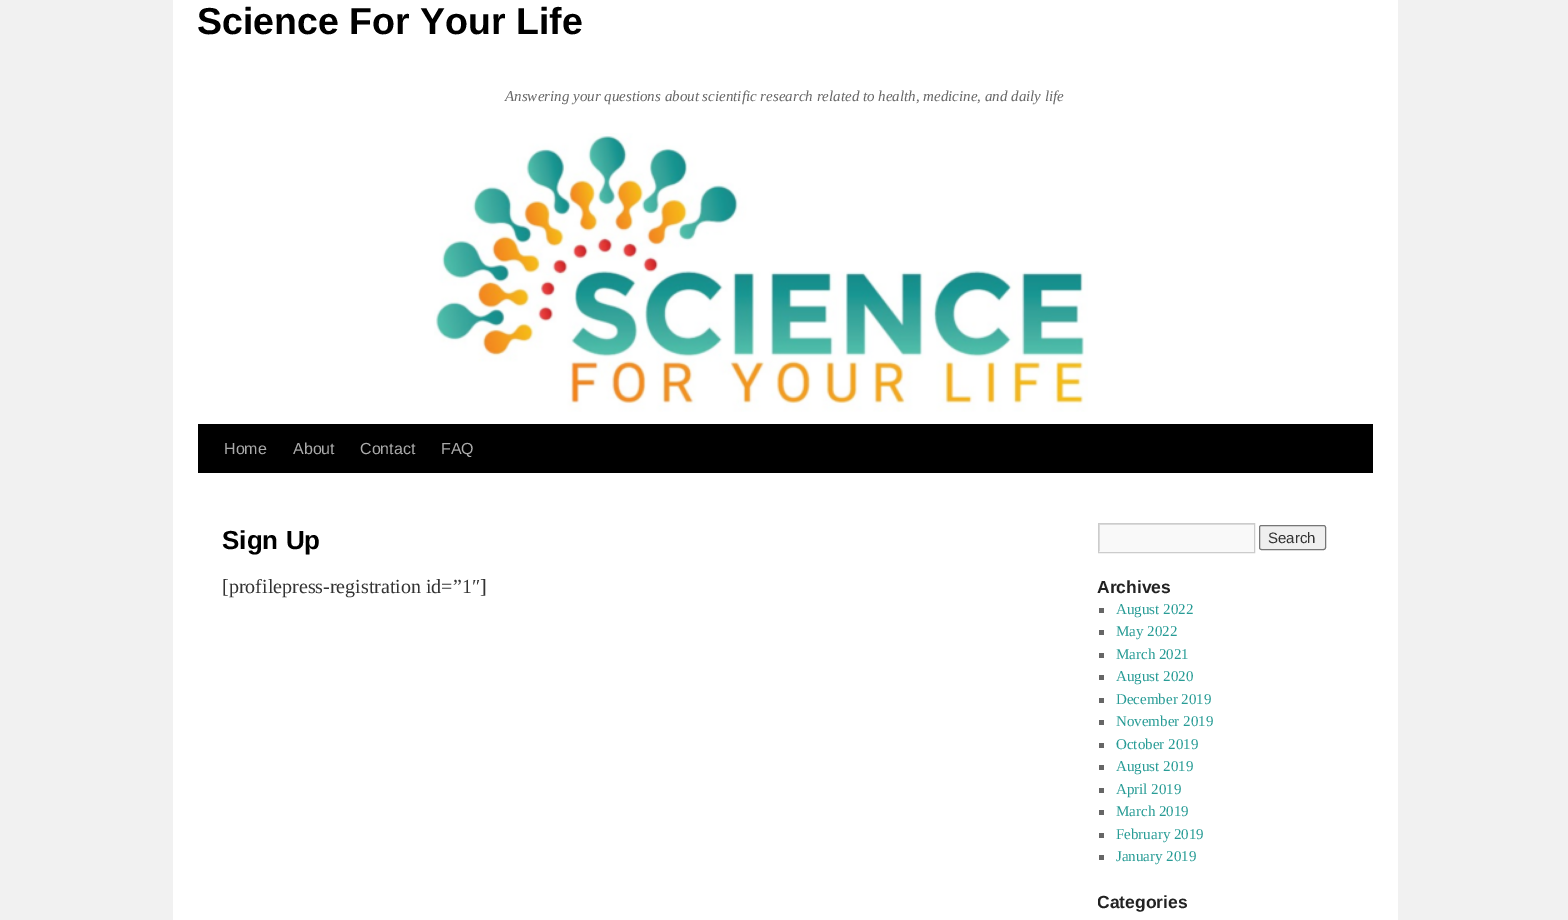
%!PS-Adobe-3.0
%%BoundingBox: 0 0 1568 920
%%LanguageLevel: 3
%%Pages: 1
%%EndComments
%%BeginProlog
/setink { dup -16 bitshift 255 div exch dup -8 bitshift 255 and 255 div exch 255 and 255 div setrgbcolor } def
/usefont { [ exch dup neg 0 0 3 -1 roll 0 0 ] selectfont } def
/rrect { 5 dict begin { /r /h /w /y /x } { exch def } forall
  x r add y moveto x w add y 2 copy h add r arct x w add y h add x 1 index r arct
  x y h add x y r arct x y 2 copy exch w add exch r arct closepath end } def
/drawimage { 5 dict begin { /h /w /y /x /name } { exch def } forall
  gsave x y translate w h scale
  w h 8 [w 0 0 h 0 0] name (r) file false 3 colorimage grestore end } def
%%EndProlog
%%BeginSetup
<< /PageSize [1568 920] >> setpagedevice
%%EndSetup
%%Page: 1 1
0 920 translate 1 -1 scale
4 setmiterlimit
16#F1F1F1 setink
0 0 1568 920 rectfill
16#FFFFFF setink
173 0 1225 920 rectfill
/LiberationSans-Bold 37.5 usefont
16#000000 setink
197 34 moveto (Science For Your Life) show
/LiberationSerif-Italic 15 usefont
16#666666 setink
505 101 moveto (Answering your questions about scientific research related to health, medicine, and daily life) show
16#000000 setink
198 424 1175 49 rectfill
(img1.raw) 434 133 654 279 drawimage
/LiberationSans-Regular 16 usefont
16#AAAAAA setink
[
    [(Home) 224 454]
    [(About) 293 454]
    [(Contact) 360 454]
    [(FAQ) 441 454]
] { aload pop moveto show } forall
/LiberationSans-Bold 26 usefont
16#000000 setink
222 549 moveto (Sign Up) show
/LiberationSerif-Regular 20 usefont
16#333333 setink
222 593 moveto ([profilepress-registration id=”1″]) show
16#F9F9F9 setink
1099 525 155 27 rectfill
gsave
1099 524 155 27 rectclip
16#E0E0E0 setink
975 400 moveto 1378 400 lineto 1378 675 lineto 975 675 lineto closepath 1100 525 moveto 1255 525 lineto 1255 552 lineto 1100 552 lineto closepath eofill
grestore
16#CCCCCC setink
1098.5 523.5 156 29 rectstroke
16#EFEFEF setink
1259.5 525.5 66 24 2 rrect gsave fill grestore
16#767676 setink
stroke
/LiberationSans-Regular 15 usefont
16#333333 setink
1268 543 moveto (Search) show
/LiberationSans-Bold 17.5 usefont
16#222222 setink
1097 593 moveto (Archives) show
16#666666 setink
1099 608 5 5 rectfill
/LiberationSerif-Regular 15 usefont
16#289C96 setink
1116 614 moveto (August 2022) show
16#666666 setink
1099 630 5 5 rectfill
16#289C96 setink
1116 636 moveto (May 2022) show
16#666666 setink
1099 653 5 5 rectfill
16#289C96 setink
1116 659 moveto (March 2021) show
16#666666 setink
1099 675 5 5 rectfill
16#289C96 setink
1116 681 moveto (August 2020) show
16#666666 setink
1099 698 5 5 rectfill
16#289C96 setink
1116 704 moveto (December 2019) show
16#666666 setink
1099 720 5 5 rectfill
16#289C96 setink
1116 726 moveto (November 2019) show
16#666666 setink
1099 743 5 5 rectfill
16#289C96 setink
1116 749 moveto (October 2019) show
16#666666 setink
1099 765 5 5 rectfill
16#289C96 setink
1116 771 moveto (August 2019) show
16#666666 setink
1099 788 5 5 rectfill
16#289C96 setink
1116 794 moveto (April 2019) show
16#666666 setink
1099 810 5 5 rectfill
16#289C96 setink
1116 816 moveto (March 2019) show
16#666666 setink
1099 833 5 5 rectfill
16#289C96 setink
1116 839 moveto (February 2019) show
16#666666 setink
1099 855 5 5 rectfill
16#289C96 setink
1116 861 moveto (January 2019) show
gsave
1098 523 275 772 rectclip
/LiberationSans-Bold 17.5 usefont
16#222222 setink
1097 908 moveto (Categories) show
grestore
showpage
%%EOF
